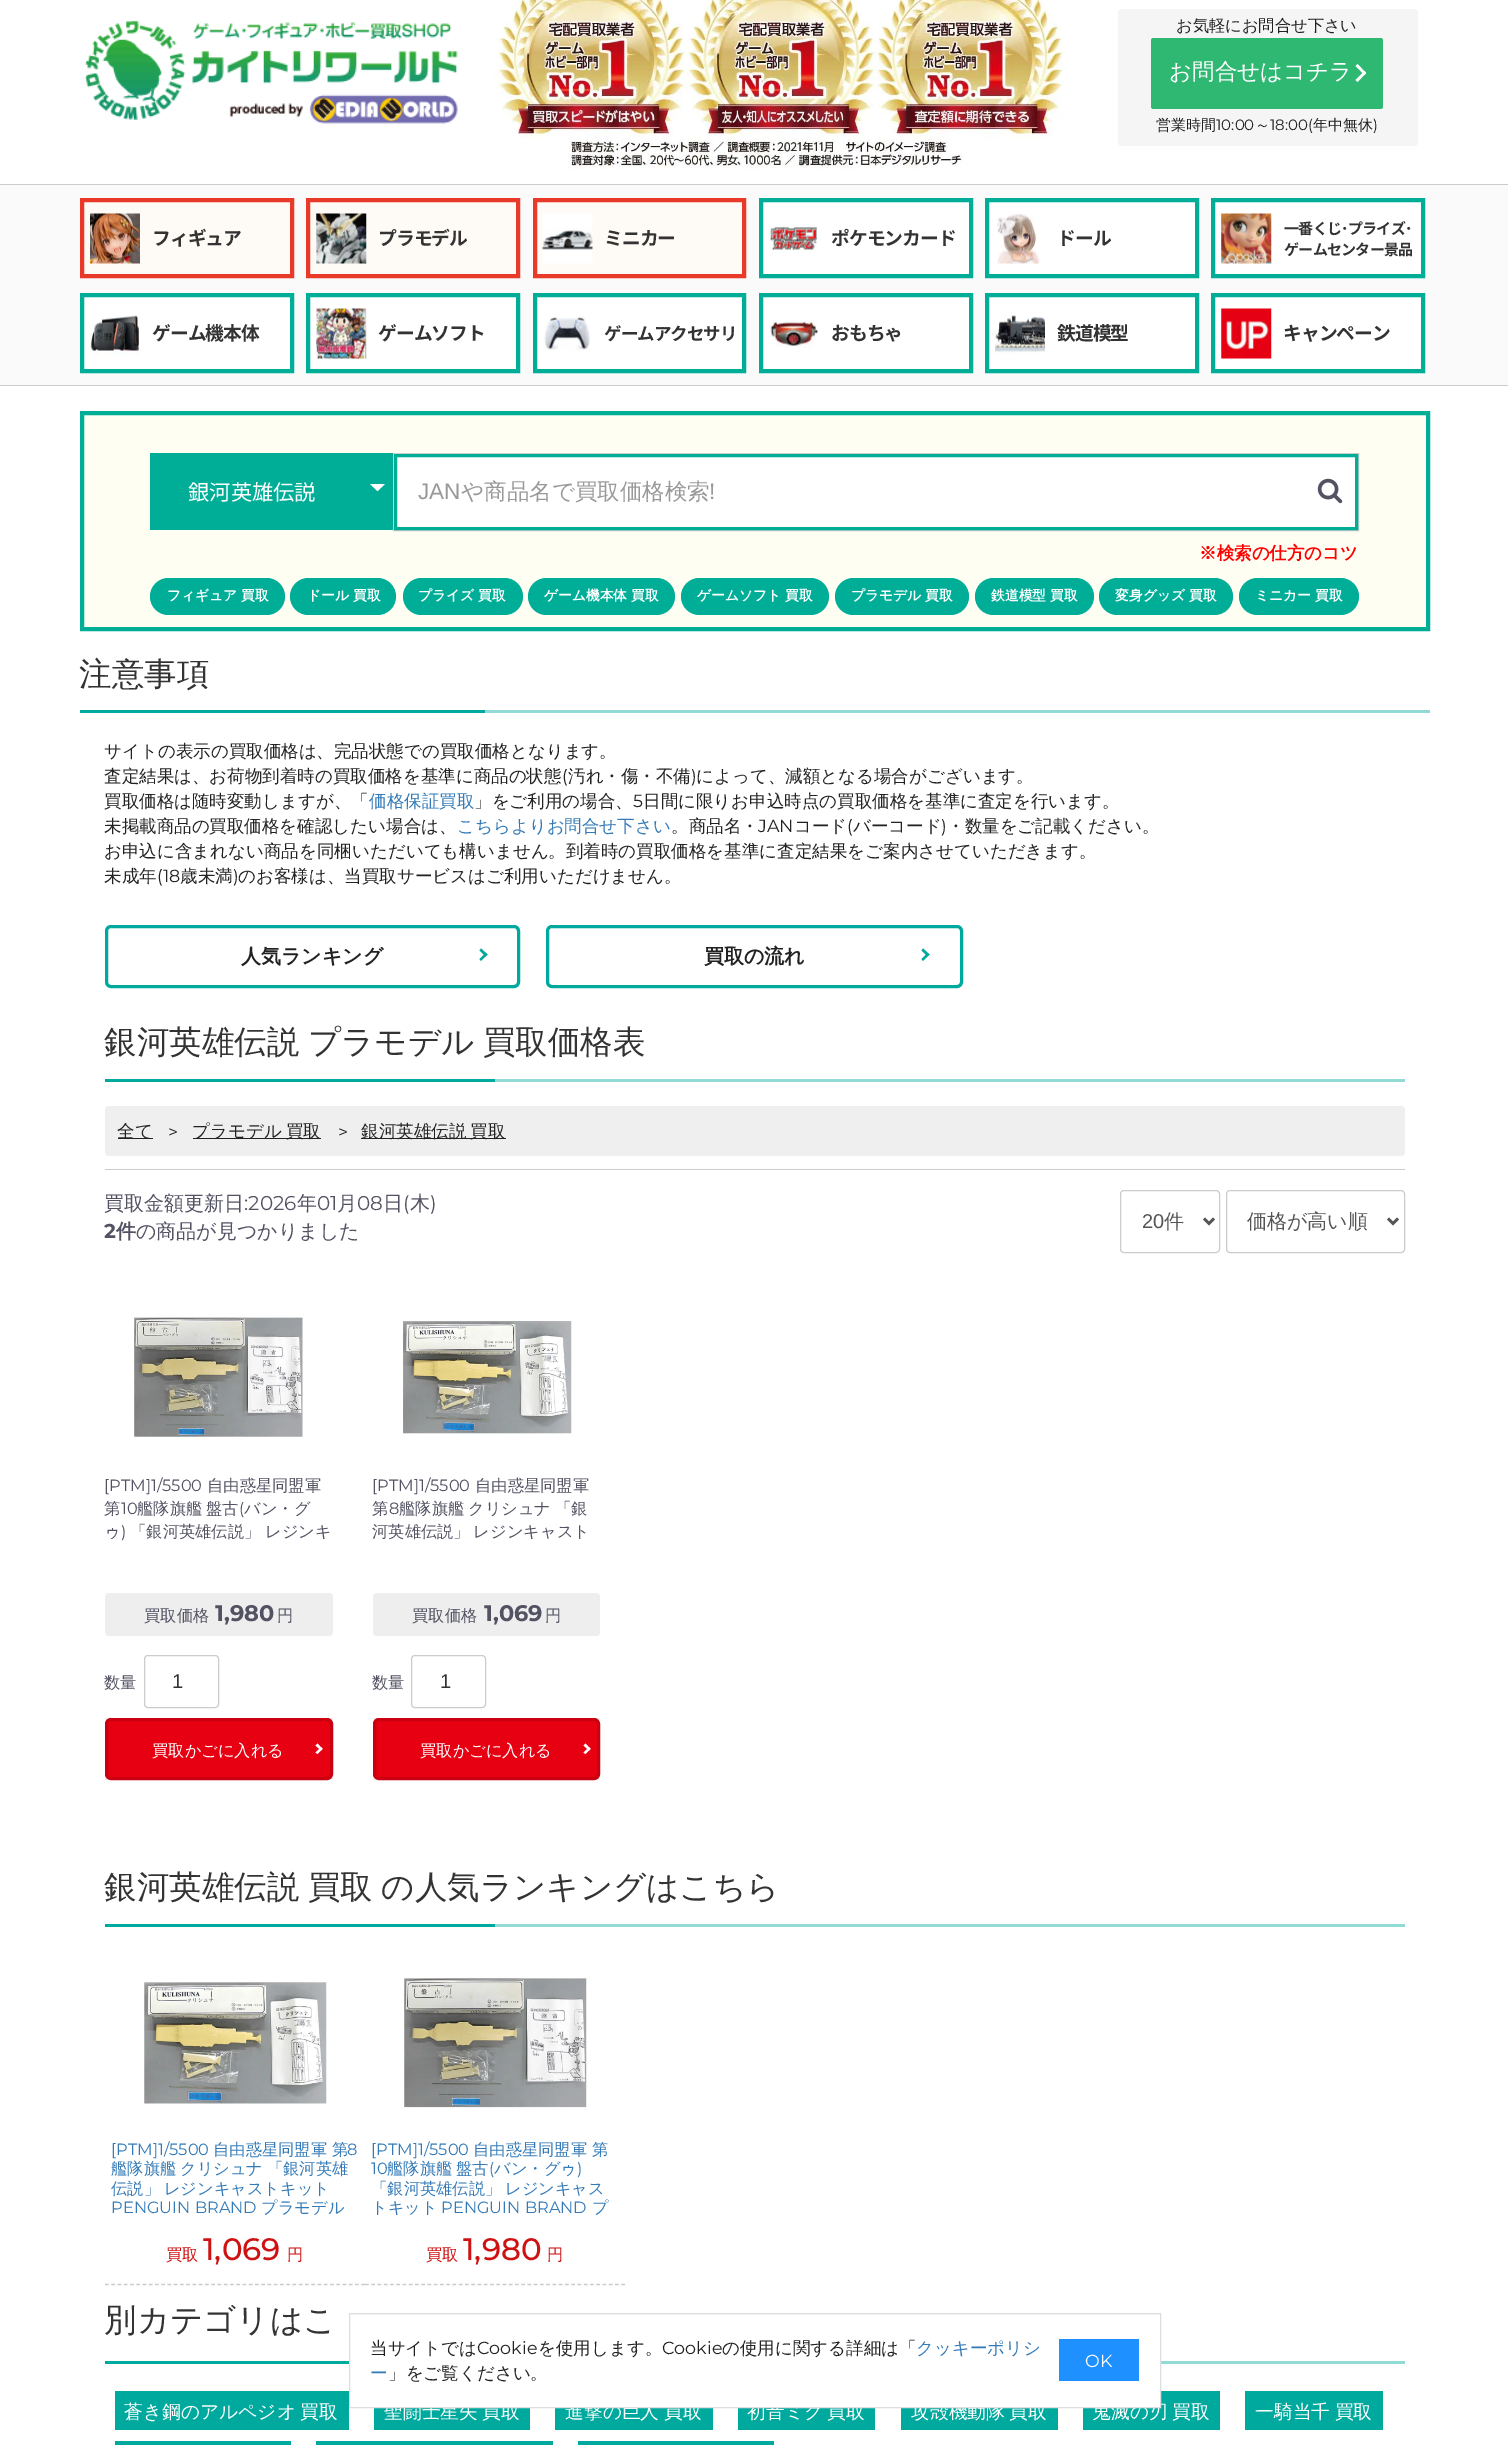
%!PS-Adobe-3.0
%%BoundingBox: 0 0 1508 2445
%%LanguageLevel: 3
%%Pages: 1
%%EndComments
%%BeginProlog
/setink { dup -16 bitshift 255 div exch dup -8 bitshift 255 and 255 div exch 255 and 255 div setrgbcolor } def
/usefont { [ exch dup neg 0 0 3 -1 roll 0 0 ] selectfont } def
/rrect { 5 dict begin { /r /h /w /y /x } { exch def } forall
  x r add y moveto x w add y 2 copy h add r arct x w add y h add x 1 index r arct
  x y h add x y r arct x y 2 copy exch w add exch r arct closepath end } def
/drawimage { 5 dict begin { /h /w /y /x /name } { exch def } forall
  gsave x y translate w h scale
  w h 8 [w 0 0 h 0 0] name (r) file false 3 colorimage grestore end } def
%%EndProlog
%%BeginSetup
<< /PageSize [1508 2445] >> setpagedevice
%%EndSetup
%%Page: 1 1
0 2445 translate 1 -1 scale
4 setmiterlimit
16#FFFFFF setink
0 0 1508 2445 rectfill
(img1.raw) 85 20 373 104 drawimage
(img2.raw) 492 0 571 169 drawimage
16#F5F5F5 setink
1118 9 300 137 4 rrect fill
/WenQuanYiZenHei-Medium 16.25 usefont
16#222222 setink
1176 31 moveto (お気軽にお問合せ下さい) show
16#2EB872 setink
1151 38 232 71 2.5 rrect fill
/WenQuanYiZenHei-Medium 22.5 usefont
16#FFFFFF setink
1169 79 moveto (お問合せはコチラ) show
1357.5 64 moveto 1366 73 lineto 1364.5 75 lineto 1355.5 66 lineto closepath fill
1364.5 71 moveto 1366 73 lineto 1357.5 82 lineto 1355.5 80 lineto closepath fill
/WenQuanYiZenHei-Medium 15 usefont
16#222222 setink
1156 130 moveto (営業時間) show
/Montserrat-Regular 15 usefont
1216 130 moveto (10:00) show
/WenQuanYiZenHei-Medium 15 usefont
1255 130 moveto (～) show
/Montserrat-Regular 15 usefont
1270 130 moveto (18:00\() show
/WenQuanYiZenHei-Medium 15 usefont
1313 130 moveto (年中無休) show
/Montserrat-Regular 15 usefont
1373 130 moveto (\)) show
[
    [0 185 1508 200 16#FAFAFA]
    [0 184 1508 1 16#CCCCCC]
    [0 385 1508 1 16#CCCCCC]
] { aload pop setink rectfill } forall
16#FEFBF6 setink
82 200 moveto 292 200 lineto 292 276 lineto 82 276 lineto closepath gsave fill grestore
16#E83929 setink
4 setlinewidth
stroke
(img3.raw) 90 213 50 51 drawimage
/NotoSansJP-Bold 18.75 usefont
16#333333 setink
152 245 moveto -1 0 (フィギュア) ashow
16#FEFBF6 setink
308 200 moveto 518 200 lineto 518 276 lineto 308 276 lineto closepath gsave fill grestore
16#E83929 setink
stroke
(img4.raw) 316 213 51 51 drawimage
16#333333 setink
378 245 moveto -1 0 (プラモデル) ashow
16#FEFBF6 setink
535 200 moveto 744 200 lineto 744 276 lineto 535 276 lineto closepath gsave fill grestore
16#E83929 setink
stroke
(img5.raw) 542 213 51 51 drawimage
16#333333 setink
604 245 moveto -1 0 (ミニカー) ashow
16#FFFFFF setink
761 200 moveto 971 200 lineto 971 276 lineto 761 276 lineto closepath gsave fill grestore
16#00AE98 setink
stroke
(img6.raw) 769 225 48 27 drawimage
16#333333 setink
831 245 moveto -1 0 (ポケモンカード) ashow
16#FFFFFF setink
987 200 moveto 1197 200 lineto 1197 276 lineto 987 276 lineto closepath gsave fill grestore
16#00AE98 setink
stroke
(img7.raw) 997 213 43 51 drawimage
16#333333 setink
1057 245 moveto -1 0 (ドール) ashow
16#FFFFFF setink
1213 200 moveto 1423 200 lineto 1423 276 lineto 1213 276 lineto closepath gsave fill grestore
16#00AE98 setink
stroke
(img8.raw) 1221 213 51 51 drawimage
/NotoSansJP-Bold 15 usefont
16#333333 setink
1284 234 moveto -0.75 0 (一番くじ･プライズ･) ashow
1284 255 moveto -0.75 0 (ゲームセンター景品) ashow
16#FFFFFF setink
82 295 moveto 292 295 lineto 292 371 lineto 82 371 lineto closepath gsave fill grestore
16#00AE98 setink
stroke
(img9.raw) 90 315 50 41 drawimage
/NotoSansJP-Bold 18.75 usefont
16#333333 setink
152 340 moveto -1 0 (ゲーム機本体) ashow
16#FFFFFF setink
308 295 moveto 518 295 lineto 518 371 lineto 308 371 lineto closepath gsave fill grestore
16#00AE98 setink
stroke
(img10.raw) 316 308 51 51 drawimage
16#333333 setink
378 340 moveto -1 0 (ゲームソフト) ashow
16#FFFFFF setink
535 295 moveto 744 295 lineto 744 371 lineto 535 371 lineto closepath gsave fill grestore
16#00AE98 setink
stroke
(img11.raw) 543 316 47 35 drawimage
/NotoSansJP-Bold 17.5 usefont
16#333333 setink
604 340 moveto -1 0 (ゲームアクセサリ) ashow
16#FFFFFF setink
761 295 moveto 971 295 lineto 971 371 lineto 761 371 lineto closepath gsave fill grestore
16#00AE98 setink
stroke
(img12.raw) 769 320 49 28 drawimage
/NotoSansJP-Bold 18.75 usefont
16#333333 setink
831 340 moveto -1 0 (おもちゃ) ashow
16#FFFFFF setink
987 295 moveto 1197 295 lineto 1197 371 lineto 987 371 lineto closepath gsave fill grestore
16#00AE98 setink
stroke
(img13.raw) 995 315 50 40 drawimage
16#333333 setink
1057 340 moveto -1 0 (鉄道模型) ashow
16#FFFFFF setink
1213 295 moveto 1423 295 lineto 1423 371 lineto 1213 371 lineto closepath gsave fill grestore
16#00AE98 setink
stroke
(img14.raw) 1221 308 51 51 drawimage
16#333333 setink
1283 340 moveto -1 0 (キャンペーン) ashow
16#FEFEF3 setink
82 413 moveto 1428 413 lineto 1428 629 lineto 82 629 lineto closepath gsave fill grestore
16#00AE98 setink
stroke
150 453 243 77 rectfill
/NotoSansJP-Regular 21.25 usefont
16#FFFFFF setink
188 500 moveto (銀河英雄伝説) show
370 484 moveto 385 484 lineto 377.5 491 lineto closepath fill
16#CCCCCC setink
1 setlinewidth
393.5 453.5 965 77 rectstroke
16#FFFFFF setink
395.5 455.5 moveto 1356.5 455.5 lineto 1356.5 528.5 lineto 395.5 528.5 lineto closepath gsave fill grestore
16#00AE98 setink
3 setlinewidth
stroke
/LiberationSans-Regular 22.5 usefont
16#999999 setink
418 499 moveto (JAN) show
/WenQuanYiZenHei-Medium 22.5 usefont
461 499 moveto (や商品名で買取価格検索) show
/LiberationSans-Regular 22.5 usefont
709 499 moveto (!) show
(img15.raw) 1317 478 26 26 drawimage
/WenQuanYiZenHei-Bold 17.5 usefont
16#FF0000 setink
1199 559 moveto (※検索の仕方のコツ) show
16#00AE98 setink
150 578 135 37 18.5 rrect fill
/WenQuanYiZenHei-Bold 13.75 usefont
16#FFFFFF setink
167 600 moveto (フィギュア 買取) show
16#00AE98 setink
290 578 106 37 18.5 rrect fill
16#FFFFFF setink
307 600 moveto (ドール 買取) show
16#00AE98 setink
403 578 120 37 18.5 rrect fill
16#FFFFFF setink
418 600 moveto (プライズ 買取) show
16#00AE98 setink
528 578 147 37 18.5 rrect fill
16#FFFFFF setink
544 600 moveto (ゲーム機本体 買取) show
16#00AE98 setink
681 578 148 37 18.5 rrect fill
16#FFFFFF setink
697 600 moveto (ゲームソフト 買取) show
16#00AE98 setink
835 578 134 37 18.5 rrect fill
16#FFFFFF setink
851 600 moveto (プラモデル 買取) show
16#00AE98 setink
975 578 119 37 18.5 rrect fill
16#FFFFFF setink
991 600 moveto (鉄道模型 買取) show
16#00AE98 setink
1099 578 134 37 18.5 rrect fill
16#FFFFFF setink
1115 600 moveto (変身グッズ 買取) show
16#00AE98 setink
1239 578 120 37 18.5 rrect fill
16#FFFFFF setink
1255 600 moveto (ミニカー 買取) show
16#91DAD5 setink
485 710 945 3 rectfill
/WenQuanYiZenHei-Medium 32.5 usefont
16#333333 setink
79 685 moveto (注意事項) show
16#00A99D setink
80 710 405 3 rectfill
/WenQuanYiZenHei-Medium 17.5 usefont
16#222222 setink
104 757 moveto (サイトの表示の買取価格は、完品状態での買取価格となります。) show
104 782 moveto (査定結果は、お荷物到着時の買取価格を基準に商品の状態) show
/Montserrat-Regular 17.5 usefont
562 782 moveto (\() show
/WenQuanYiZenHei-Medium 17.5 usefont
568 782 moveto (汚れ・傷・不備) show
/Montserrat-Regular 17.5 usefont
691 782 moveto (\)) show
/WenQuanYiZenHei-Medium 17.5 usefont
696 782 moveto (によって、減額となる場合がございます。) show
104 807 moveto (買取価格は随時変動しますが、「) show
16#337AB7 setink
369 807 moveto (価格保証買取) show
16#222222 setink
474 807 moveto (」をご利用の場合、) show
/Montserrat-Regular 17.5 usefont
633 807 moveto (5) show
/WenQuanYiZenHei-Medium 17.5 usefont
643 807 moveto (日間に限りお申込時点の買取価格を基準に査定を行います。) show
104 832 moveto (未掲載商品の買取価格を確認したい場合は、) show
16#337AB7 setink
457 832 moveto (こちらよりお問合せ下さい) show
16#222222 setink
671 832 moveto (。商品名・) show
/Montserrat-Regular 17.5 usefont
758 832 moveto (JAN) show
/WenQuanYiZenHei-Medium 17.5 usefont
794 832 moveto (コード) show
/Montserrat-Regular 17.5 usefont
847 832 moveto (\() show
/WenQuanYiZenHei-Medium 17.5 usefont
853 832 moveto (バーコード) show
/Montserrat-Regular 17.5 usefont
941 832 moveto (\)) show
/WenQuanYiZenHei-Medium 17.5 usefont
[
    [(・数量をご記載ください。) 947 832]
    [(お申込に含まれない商品を同梱いただいても構いません。到着時の買取価格を基準に査定結果をご案内させていただきます。) 104 857]
    [(未成年) 104 882]
] { aload pop moveto show } forall
/Montserrat-Regular 17.5 usefont
157 882 moveto (\(18) show
/WenQuanYiZenHei-Medium 17.5 usefont
180 882 moveto (歳未満) show
/Montserrat-Regular 17.5 usefont
233 882 moveto (\)) show
/WenQuanYiZenHei-Medium 17.5 usefont
238 882 moveto (のお客様は、当買取サービスはご利用いただけません。) show
16#00A99D setink
106.5 926.5 412 60 4.5 rrect stroke
/WenQuanYiZenHei-Bold 20 usefont
16#222222 setink
241 963 moveto (人気ランキング) show
16#00A99D setink
481 948.5 moveto 487.5 954.5 lineto 485.5 956.5 lineto 479.5 950.5 lineto closepath fill
485.5 953 moveto 487.5 954.5 lineto 481 961 lineto 479.5 959 lineto closepath fill
547.5 926.5 414 60 4.5 rrect stroke
16#222222 setink
704 963 moveto (買取の流れ) show
16#00A99D setink
923 948.5 moveto 929.5 954.5 lineto 927.5 956.5 lineto 921.5 950.5 lineto closepath fill
927.5 953 moveto 929.5 954.5 lineto 923 961 lineto 921.5 959 lineto closepath fill
16#91DAD5 setink
495 1079 910 3 rectfill
/WenQuanYiZenHei-Medium 32.5 usefont
16#333333 setink
104 1053 moveto -1 0 32 (銀河英雄伝説 プラモデル 買取価格表) widthshow
16#00A99D setink
105 1079 390 3 rectfill
16#EFEFEF setink
105 1106 1300 50 4 rrect fill
16#222222 setink
118 1138 35 1 rectfill
/WenQuanYiZenHei-Medium 17.5 usefont
117 1137 moveto (全て) show
/Montserrat-Regular 17.5 usefont
168 1138 moveto (>) show
193 1138 128 1 rectfill
/WenQuanYiZenHei-Medium 17.5 usefont
192 1137 moveto -1 0 32 (プラモデル 買取) widthshow
/Montserrat-Regular 17.5 usefont
338 1138 moveto (>) show
361 1138 145 1 rectfill
/WenQuanYiZenHei-Medium 17.5 usefont
361 1137 moveto -1 0 32 (銀河英雄伝説 買取) widthshow
16#CCCCCC setink
105 1169 1300 1 rectfill
/WenQuanYiZenHei-Medium 20 usefont
16#525263 setink
104 1210 moveto (買取金額更新日) show
/Montserrat-Regular 20 usefont
244 1210 moveto (:2026) show
/WenQuanYiZenHei-Medium 20 usefont
297 1210 moveto (年) show
/Montserrat-Regular 20 usefont
317 1210 moveto (01) show
/WenQuanYiZenHei-Medium 20 usefont
337 1210 moveto (月) show
/Montserrat-Regular 20 usefont
357 1210 moveto (08) show
/WenQuanYiZenHei-Medium 20 usefont
383 1210 moveto (日) show
/Montserrat-Regular 20 usefont
403 1210 moveto (\() show
/WenQuanYiZenHei-Medium 20 usefont
410 1210 moveto (木) show
/Montserrat-Regular 20 usefont
430 1210 moveto (\)) show
/Montserrat-Bold 20 usefont
104 1238 moveto (2) show
/WenQuanYiZenHei-Bold 20 usefont
116 1238 moveto (件) show
/WenQuanYiZenHei-Medium 20 usefont
136 1238 moveto (の商品が見つかりました) show
16#CCCCCC setink
1 setlinewidth
1120.5 1190.5 99 62 3.5 rrect stroke
16#555555 setink
2.5 setlinewidth
1204 1218.5 moveto 1209 1223.5 lineto 1214 1218.5 lineto stroke
/LiberationSans-Regular 20 usefont
1142 1228 moveto (20) show
/WenQuanYiZenHei-Medium 20 usefont
1164 1228 moveto (件) show
16#CCCCCC setink
1 setlinewidth
1226.5 1190.5 178 62 3.5 rrect stroke
16#555555 setink
2.5 setlinewidth
1388 1218.5 moveto 1393 1223.5 lineto 1398 1218.5 lineto stroke
1247 1228 moveto (価格が高い順) show
(img16.raw) 134 1317 169 120 drawimage
/Montserrat-Regular 16.25 usefont
16#525263 setink
104 1491 moveto ([PTM]1/5500) show
/WenQuanYiZenHei-Medium 16.25 usefont
207 1491 moveto (自由惑星同盟軍) show
104 1514 moveto (第) show
/Montserrat-Regular 16.25 usefont
121 1514 moveto (10) show
/WenQuanYiZenHei-Medium 16.25 usefont
137 1514 moveto -1 0 32 (艦隊旗艦 盤古) widthshow
/Montserrat-Regular 16.25 usefont
239 1514 moveto (\() show
/WenQuanYiZenHei-Medium 16.25 usefont
244 1514 moveto (バン・グ) show
104 1537 moveto (ゥ) show
/Montserrat-Regular 16.25 usefont
121 1537 moveto (\)) show
/WenQuanYiZenHei-Medium 16.25 usefont
130 1537 moveto (「銀河英雄伝説」 レジンキ) show
16#EEEEEE setink
105 1593 228 43 4 rrect fill
16#525263 setink
144 1621 moveto (買取価格) show
/Montserrat-Bold 22.5 usefont
215 1621 moveto (1,980) show
/WenQuanYiZenHei-Medium 16.25 usefont
277 1621 moveto (円) show
104 1688 moveto (数量) show
16#CCCCCC setink
1 setlinewidth
144.5 1655.5 74 52 3.5 rrect stroke
/LiberationSans-Regular 20 usefont
16#333333 setink
172 1688 moveto (1) show
16#EEEEEE setink
105 1718 228 62 rectfill
16#E60012 setink
106.5 1719.5 225 59 4.5 rrect gsave fill grestore
16#CA0010 setink
3 setlinewidth
stroke
/WenQuanYiZenHei-Medium 16.25 usefont
16#FFFFFF setink
152 1756 moveto (買取かごに入れる) show
317.5 1743.5 moveto 322.5 1749 lineto 321 1750.5 lineto 315.5 1745.5 lineto closepath fill
321 1747 moveto 322.5 1749 lineto 317.5 1754 lineto 315.5 1752.5 lineto closepath fill
(img17.raw) 403 1321 169 113 drawimage
/Montserrat-Regular 16.25 usefont
16#525263 setink
372 1491 moveto ([PTM]1/5500) show
/WenQuanYiZenHei-Medium 16.25 usefont
475 1491 moveto (自由惑星同盟軍) show
372 1514 moveto (第) show
/Montserrat-Regular 16.25 usefont
389 1514 moveto (8) show
/WenQuanYiZenHei-Medium 16.25 usefont
399 1514 moveto -1 0 32 (艦隊旗艦 クリシュナ 「銀) widthshow
372 1537 moveto -1 0 32 (河英雄伝説」 レジンキャスト) widthshow
16#EEEEEE setink
373 1593 227 43 4 rrect fill
16#525263 setink
412 1621 moveto (買取価格) show
/Montserrat-Bold 22.5 usefont
484 1621 moveto (1,069) show
/WenQuanYiZenHei-Medium 16.25 usefont
545 1621 moveto (円) show
372 1688 moveto (数量) show
16#CCCCCC setink
1 setlinewidth
411.5 1655.5 74 52 3.5 rrect stroke
/LiberationSans-Regular 20 usefont
16#333333 setink
440 1688 moveto (1) show
16#EEEEEE setink
373 1718 227 62 rectfill
16#E60012 setink
374.5 1719.5 224 59 4.5 rrect gsave fill grestore
16#CA0010 setink
3 setlinewidth
stroke
/WenQuanYiZenHei-Medium 16.25 usefont
16#FFFFFF setink
420 1756 moveto (買取かごに入れる) show
585.5 1743.5 moveto 590.5 1749 lineto 589 1750.5 lineto 583.5 1745.5 lineto closepath fill
589 1747 moveto 590.5 1749 lineto 585.5 1754 lineto 583.5 1752.5 lineto closepath fill
16#91DAD5 setink
495 1924 910 3 rectfill
/WenQuanYiZenHei-Medium 32.5 usefont
16#333333 setink
104 1898 moveto -1 0 32 (銀河英雄伝説 買取 の人気ランキングはこちら) widthshow
16#00A99D setink
105 1924 390 3 rectfill
16#CCCCCC setink
1.2 setlinewidth
[3.75 2.5] 0 setdash
105 2284.5 moveto 365 2284.5 lineto stroke
(img18.raw) 144 1982 183 122 drawimage
/Montserrat-Regular 16.25 usefont
16#337AB7 setink
111 2155 moveto ([PTM]1/5500) show
/WenQuanYiZenHei-Medium 16.25 usefont
213 2155 moveto (自由惑星同盟軍 第) show
/Montserrat-Regular 16.25 usefont
347 2155 moveto (8) show
/WenQuanYiZenHei-Medium 16.25 usefont
111 2174 moveto -1 0 32 (艦隊旗艦 クリシュナ 「銀河英雄) widthshow
111 2194 moveto -1 0 32 (伝説」 レジンキャストキット) widthshow
/Montserrat-Regular 16.25 usefont
111 2213 moveto (PENGUIN BRAND) show
/WenQuanYiZenHei-Medium 16.25 usefont
261 2213 moveto (プラモデル) show
16#CE1212 setink
166 2260 moveto (買取) show
/Montserrat-Medium 31 usefont
203 2260 moveto (1,069) show
/WenQuanYiZenHei-Medium 16.25 usefont
287 2260 moveto (円) show
16#CCCCCC setink
365 2284.5 moveto 625 2284.5 lineto stroke
(img19.raw) 404 1978 183 130 drawimage
/Montserrat-Regular 16.25 usefont
16#337AB7 setink
371 2155 moveto ([PTM]1/5500) show
/WenQuanYiZenHei-Medium 16.25 usefont
473 2155 moveto (自由惑星同盟軍 第) show
/Montserrat-Regular 16.25 usefont
371 2174 moveto (10) show
/WenQuanYiZenHei-Medium 16.25 usefont
387 2174 moveto -1 0 32 (艦隊旗艦 盤古) widthshow
/Montserrat-Regular 16.25 usefont
489 2174 moveto (\() show
/WenQuanYiZenHei-Medium 16.25 usefont
494 2174 moveto (バン・グゥ) show
/Montserrat-Regular 16.25 usefont
577 2174 moveto (\)) show
/WenQuanYiZenHei-Medium 16.25 usefont
371 2194 moveto -1 0 32 (「銀河英雄伝説」 レジンキャス) widthshow
371 2213 moveto (トキット) show
/Montserrat-Regular 16.25 usefont
441 2213 moveto (PENGUIN BRAND) show
/WenQuanYiZenHei-Medium 16.25 usefont
592 2213 moveto (プ) show
16#CE1212 setink
426 2260 moveto (買取) show
/Montserrat-Medium 31 usefont
463 2260 moveto (1,980) show
/WenQuanYiZenHei-Medium 16.25 usefont
547 2260 moveto (円) show
16#91DAD5 setink
1161 2361 244 3 rectfill
/WenQuanYiZenHei-Medium 32.5 usefont
16#333333 setink
104 2331 moveto (別カテゴリはこ) show
16#00A99D setink
105 2361 244 3 rectfill
115 2391 234 39 rectfill
/WenQuanYiZenHei-Medium 18.75 usefont
16#FFFFFF setink
124 2418 moveto -1 0 32 (蒼き鋼のアルペジオ 買取) widthshow
16#00A99D setink
374 2408 156 22 rectfill
16#FFFFFF setink
384 2418 moveto -1 0 32 (聖闘士星矢 買取) widthshow
16#00A99D setink
555 2408 158 22 rectfill
16#FFFFFF setink
565 2418 moveto -1 0 32 (進撃の巨人 買取) widthshow
16#00A99D setink
738 2408 137 22 rectfill
16#FFFFFF setink
747 2418 moveto -1 0 32 (初音ミク 買取) widthshow
16#00A99D setink
901 2408 157 22 rectfill
16#FFFFFF setink
911 2418 moveto -1 0 32 (攻殻機動隊 買取) widthshow
16#00A99D setink
1083 2391 137 39 rectfill
16#FFFFFF setink
1092 2418 moveto -1 0 32 (鬼滅の刃 買取) widthshow
16#00A99D setink
1245 2391 138 39 rectfill
16#FFFFFF setink
1255 2418 moveto -1 0 32 (一騎当千 買取) widthshow
[
    [115 2441 176 4 16#00A99D]
    [316 2441 237 4 16#00A99D]
    [578 2441 196 4 16#00A99D]
    [1083 2391 77 16 16#FFFFFF]
] { aload pop setink rectfill } forall
16#DDDDDD setink
1 setlinewidth
[] 0 setdash
349.5 2313.5 811 94 rectstroke
/WenQuanYiZenHei-Medium 17.5 usefont
16#222222 setink
370 2354 moveto (当サイトでは) show
/Montserrat-Regular 17.5 usefont
477 2354 moveto (Cookie) show
/WenQuanYiZenHei-Medium 17.5 usefont
538 2354 moveto (を使用します。) show
/Montserrat-Regular 17.5 usefont
662 2354 moveto (Cookie) show
/WenQuanYiZenHei-Medium 17.5 usefont
722 2354 moveto (の使用に関する詳細は「) show
16#337AB7 setink
916 2354 moveto (クッキーポリシ) show
370 2379 moveto (ー) show
16#222222 setink
388 2379 moveto (」をご覧ください。) show
16#1E90FF setink
1059 2339 80 42 rectfill
/Montserrat-Regular 17.5 usefont
16#FFFFFF setink
1085 2367 moveto (OK) show
showpage
%%EOF
